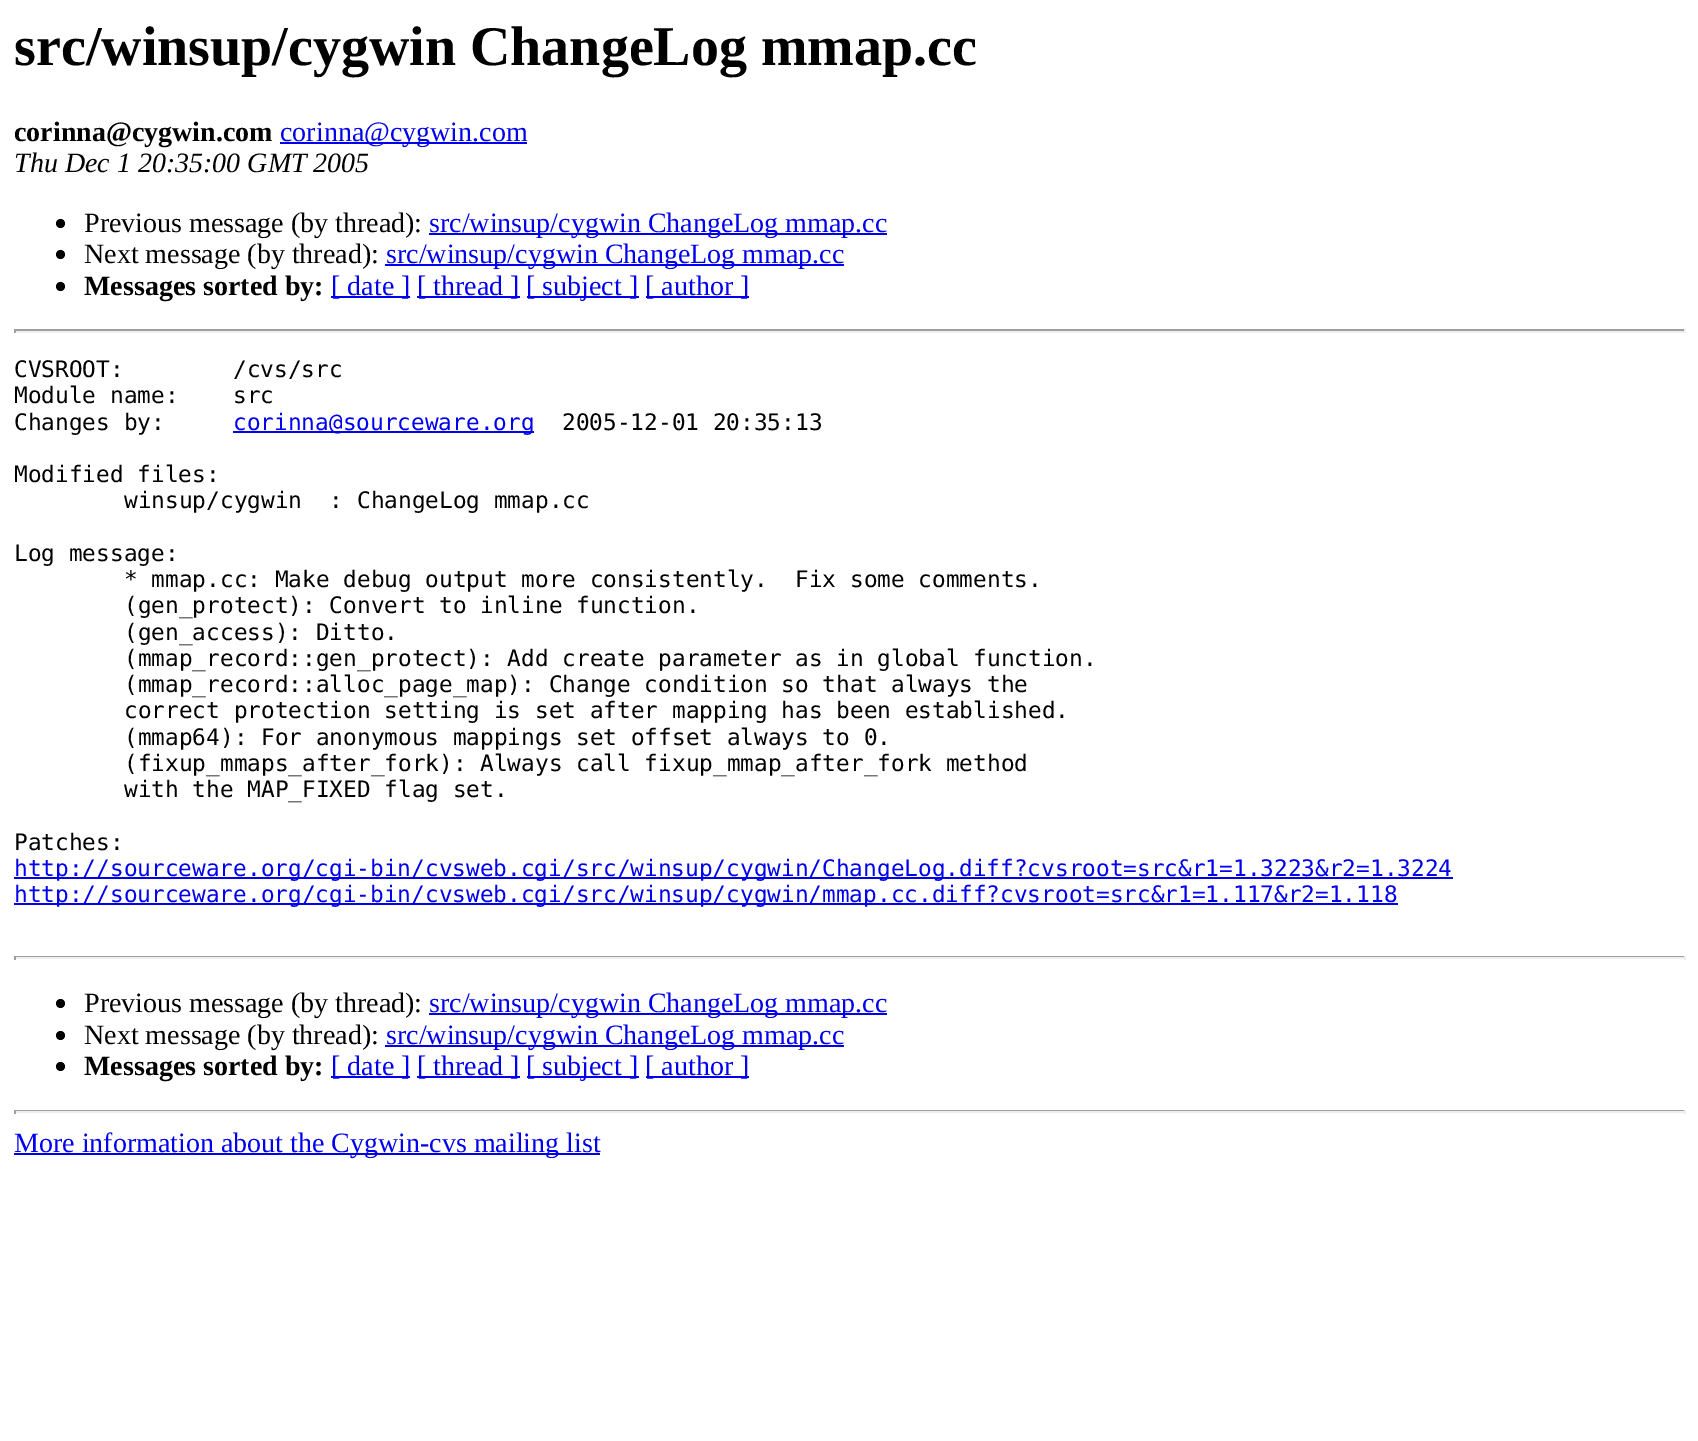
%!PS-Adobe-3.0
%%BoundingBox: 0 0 1698 1441
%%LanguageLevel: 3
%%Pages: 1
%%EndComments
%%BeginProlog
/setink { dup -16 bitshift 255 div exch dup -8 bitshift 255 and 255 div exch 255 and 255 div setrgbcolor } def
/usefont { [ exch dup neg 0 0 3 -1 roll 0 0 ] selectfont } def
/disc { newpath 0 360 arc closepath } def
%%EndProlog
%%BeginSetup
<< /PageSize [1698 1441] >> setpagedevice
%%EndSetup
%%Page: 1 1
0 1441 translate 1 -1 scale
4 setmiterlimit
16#FFFFFF setink
0 0 1698 1441 rectfill
/LiberationSerif-Bold 56 usefont
16#000000 setink
14 65 moveto (src/winsup/cygwin ChangeLog mmap.cc) show
/LiberationSerif-Bold 28 usefont
14 141 moveto (corinna@cygwin.com) show
16#0000EE setink
280 142 247 2 rectfill
/LiberationSerif-Regular 28 usefont
280 141 moveto (corinna@cygwin.com) show
/LiberationSerif-Italic 28 usefont
16#000000 setink
14 172 moveto (Thu Dec 1 20:35:00 GMT 2005) show
60.5 223.5 4.5 disc fill
/LiberationSerif-Regular 28 usefont
84 232 moveto (Previous message \(by thread\):) show
16#0000EE setink
429 233 458 2 rectfill
429 232 moveto (src/winsup/cygwin ChangeLog mmap.cc) show
16#000000 setink
60.5 254.5 4.5 disc fill
84 263 moveto (Next message \(by thread\):) show
16#0000EE setink
385 264 459 2 rectfill
386 263 moveto (src/winsup/cygwin ChangeLog mmap.cc) show
16#000000 setink
60.5 286.5 4.5 disc fill
/LiberationSerif-Bold 28 usefont
84 295 moveto (Messages sorted by:) show
16#0000EE setink
331 296 79 2 rectfill
/LiberationSerif-Regular 28 usefont
331 295 moveto ([ date ]) show
417 296 103 2 rectfill
417 295 moveto ([ thread ]) show
527 296 112 2 rectfill
526 295 moveto ([ subject ]) show
646 296 103 2 rectfill
645 295 moveto ([ author ]) show
[
    [14 329 1671 2 16#9F9F9F]
    [1684 329 2 4 16#EEEEEE]
    [14 331 1671 2 16#EEEEEE]
    [14 329 2 4 16#9F9F9F]
] { aload pop setink rectfill } forall
/DejaVuSansMono-Regular 22.75 usefont
16#000000 setink
[
    [(CVSROOT:) 14 377]
    [(/cvs/src) 233 377]
    [(Module name:) 14 403]
    [(src) 233 403]
    [(Changes by:) 14 430]
] { aload pop moveto show } forall
16#0000EE setink
233 431 301 2 rectfill
233 430 moveto (corinna@sourceware.org) show
16#000000 setink
[
    [(2005-12-01 20:35:13) 562 430]
    [(Modified files:) 14 482]
    [(winsup/cygwin  : ChangeLog mmap.cc) 124 508]
    [(Log message:) 14 561]
    [(* mmap.cc: Make debug output more consistently.  Fix some comments.) 124 587]
    [(\(gen_protect\): Convert to inline function.) 124 613]
    [(\(gen_access\): Ditto.) 124 640]
    [(\(mmap_record::gen_protect\): Add create parameter as in global function.) 124 666]
    [(\(mmap_record::alloc_page_map\): Change condition so that always the) 124 692]
    [(correct protection setting is set after mapping has been established.) 124 718]
    [(\(mmap64\): For anonymous mappings set offset always to 0.) 124 745]
    [(\(fixup_mmaps_after_fork\): Always call fixup_mmap_after_fork method) 124 771]
    [(with the MAP_FIXED flag set.) 124 797]
    [(Patches:) 14 850]
] { aload pop moveto show } forall
16#0000EE setink
14 877 1439 2 rectfill
14 876 moveto (http://sourceware.org/cgi-bin/cvsweb.cgi/src/winsup/cygwin/ChangeLog.diff?cvsroot=src&r1=1.3223&r2=1.3224) show
14 903 1384 2 rectfill
14 902 moveto (http://sourceware.org/cgi-bin/cvsweb.cgi/src/winsup/cygwin/mmap.cc.diff?cvsroot=src&r1=1.117&r2=1.118) show
[
    [14 956 1671 1 16#9F9F9F]
    [1684 956 2 4 16#EEEEEE]
    [14 957 1671 2 16#EEEEEE]
    [14 956 2 4 16#9F9F9F]
] { aload pop setink rectfill } forall
16#000000 setink
60.5 1003.5 4.5 disc fill
/LiberationSerif-Regular 28 usefont
84 1012 moveto (Previous message \(by thread\):) show
16#0000EE setink
429 1013 458 2 rectfill
429 1012 moveto (src/winsup/cygwin ChangeLog mmap.cc) show
16#000000 setink
60.5 1035.5 4.5 disc fill
84 1044 moveto (Next message \(by thread\):) show
16#0000EE setink
385 1045 459 2 rectfill
386 1044 moveto (src/winsup/cygwin ChangeLog mmap.cc) show
16#000000 setink
60.5 1066.5 4.5 disc fill
/LiberationSerif-Bold 28 usefont
84 1075 moveto (Messages sorted by:) show
16#0000EE setink
331 1076 79 2 rectfill
/LiberationSerif-Regular 28 usefont
331 1075 moveto ([ date ]) show
417 1076 103 2 rectfill
417 1075 moveto ([ thread ]) show
527 1076 112 2 rectfill
526 1075 moveto ([ subject ]) show
646 1076 103 2 rectfill
645 1075 moveto ([ author ]) show
[
    [14 1110 1671 1 16#9F9F9F]
    [1684 1110 2 4 16#EEEEEE]
    [14 1111 1671 2 16#EEEEEE]
    [14 1110 2 4 16#9F9F9F]
    [14 1153 586 2 16#0000EE]
] { aload pop setink rectfill } forall
14 1152 moveto (More information about the Cygwin-cvs mailing list) show
showpage
%%EOF
